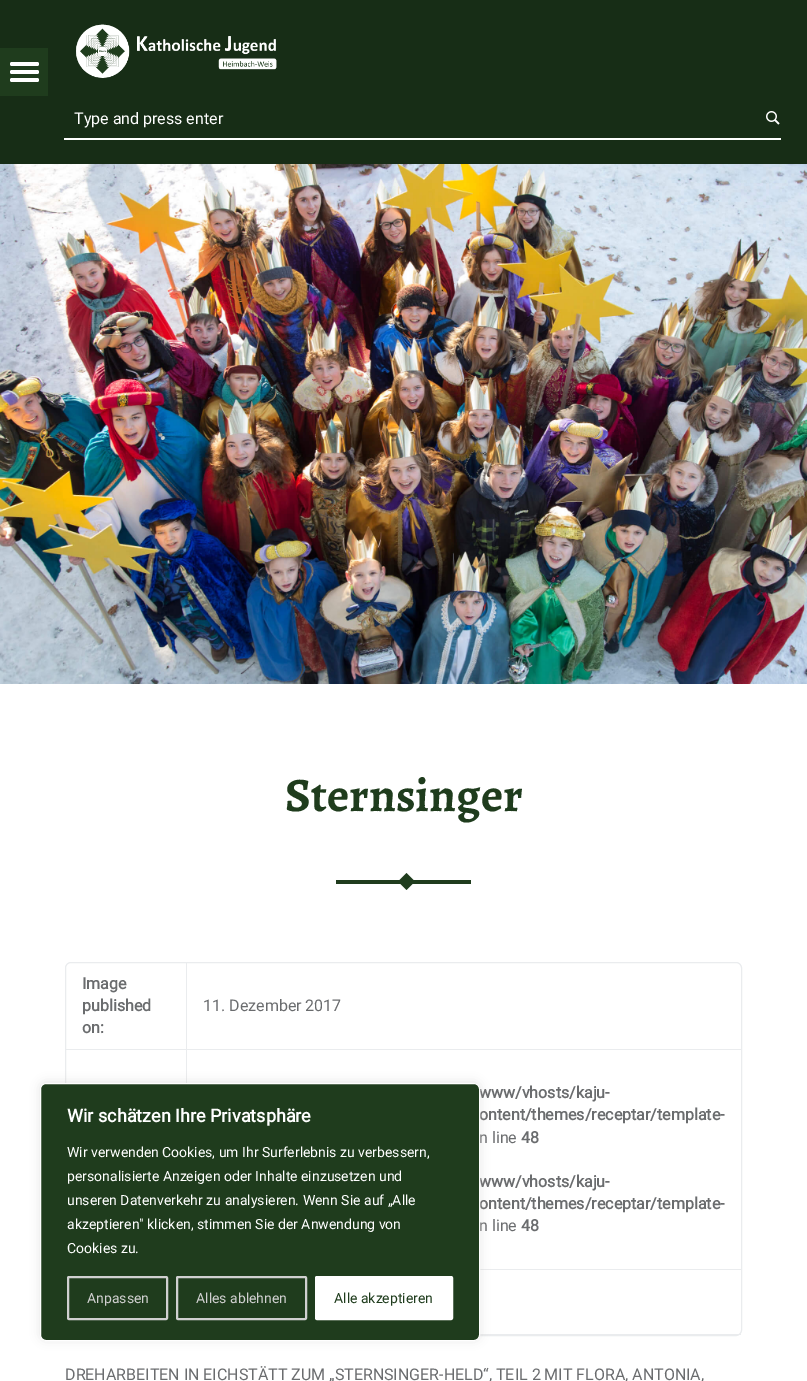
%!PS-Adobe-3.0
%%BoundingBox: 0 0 807 1381
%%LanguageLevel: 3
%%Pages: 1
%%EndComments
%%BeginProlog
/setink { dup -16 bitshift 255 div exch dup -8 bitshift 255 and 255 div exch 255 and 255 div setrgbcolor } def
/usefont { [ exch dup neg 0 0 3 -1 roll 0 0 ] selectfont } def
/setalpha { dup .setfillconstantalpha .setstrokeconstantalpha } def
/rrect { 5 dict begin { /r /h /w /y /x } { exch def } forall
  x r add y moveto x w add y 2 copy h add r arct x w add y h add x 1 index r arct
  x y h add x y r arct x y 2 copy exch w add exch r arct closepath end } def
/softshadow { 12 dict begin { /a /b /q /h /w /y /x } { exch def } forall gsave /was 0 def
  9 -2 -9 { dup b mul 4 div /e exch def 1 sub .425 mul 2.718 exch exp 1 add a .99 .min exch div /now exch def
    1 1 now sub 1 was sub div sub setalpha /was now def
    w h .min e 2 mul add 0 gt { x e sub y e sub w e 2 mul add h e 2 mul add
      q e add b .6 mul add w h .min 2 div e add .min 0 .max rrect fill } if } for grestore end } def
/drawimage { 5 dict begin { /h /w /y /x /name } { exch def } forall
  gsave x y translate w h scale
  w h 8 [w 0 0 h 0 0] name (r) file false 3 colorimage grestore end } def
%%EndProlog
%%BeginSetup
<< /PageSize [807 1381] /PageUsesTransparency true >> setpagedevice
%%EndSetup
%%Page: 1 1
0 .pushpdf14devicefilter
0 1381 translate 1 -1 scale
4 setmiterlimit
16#FFFFFF setink
0 0 807 1381 rectfill
16#172D16 setink
0 0 807 164 rectfill
16#1F3C1D setink
0 48 48 48 rectfill
16#FFFFFF setink
10 62 29 4 2 rrect fill
10 70 29 4 2 rrect fill
10 78 29 4 2 rrect fill
(img1.raw) 76 24 201 54 drawimage
64 138 717 2 rectfill
/Roboto-Regular 16 usefont
74 124 moveto (Type and press enter) show
(img2.raw) 766 111 14 14 drawimage
(img3.raw) 0 164 807 520 drawimage
/Alegreya-Bold 48 usefont
16#1F3C1D setink
285 811 moveto (Sternsinger) show
336 880 135 4 rectfill
406.5 873 moveto 415 881.5 lineto 406.5 890 lineto 398 881.5 lineto closepath fill
16#EAECEE setink
65.5 962.5 676 373 5.5 rrect stroke
66 1049 675 1 rectfill
/Roboto-Bold 16 usefont
16#6A6C6E setink
[
    [(Image) 82 989]
    [(published) 82 1011]
    [(on:) 82 1033]
] { aload pop moveto show } forall
16#EAECEE setink
186 963 1 120 rectfill
/Roboto-Regular 16 usefont
16#6A6C6E setink
203 1011 moveto (11. Dezember 2017) show
16#EAECEE setink
480 1269 261 1 rectfill
/Roboto-Bold 16 usefont
16#6A6C6E setink
479 1098 moveto (www/vhosts/kaju-) show
479 1120 moveto (ontent/themes/receptar/template-) show
/Roboto-Regular 16 usefont
479 1143 moveto (n line) show
/Roboto-Bold 16 usefont
[
    [(48) 521 1143]
    [(www/vhosts/kaju-) 479 1187]
    [(ontent/themes/receptar/template-) 479 1209]
] { aload pop moveto show } forall
/Roboto-Regular 16 usefont
479 1231 moveto (n line) show
/Roboto-Bold 16 usefont
521 1231 moveto (48) show
16#EAECEE setink
480 1334 261 1 rectfill
/Roboto-Regular 16 usefont
16#6A6C6E setink
65 1380 moveto (DREHARBEITEN IN EICHSTÄTT ZUM „STERNSINGER-HELD“, TEIL 2 MIT FLORA, ANTONIA,) show
16#ACABAB setink
40 1082 440 258 6 5 0.3 softshadow
16#1F3C1D setink
40.5 1083.5 439 257 5.5 rrect gsave fill grestore
16#FFFFFF setink
stroke
/Roboto-Bold 18 usefont
67 1122 moveto (Wir schätzen Ihre Privatsphäre) show
/Roboto-Regular 14 usefont
[
    [(Wir verwenden Cookies, um Ihr Surferlebnis zu verbessern,) 67 1157]
    [(personalisierte Anzeigen oder Inhalte einzusetzen und) 67 1181]
    [(unseren Datenverkehr zu analysieren. Wenn Sie auf „Alle) 67 1205]
    [(akzeptieren" klicken, stimmen Sie der Anwendung von) 67 1229]
    [(Cookies zu.) 67 1253]
] { aload pop moveto show } forall
16#D0D0D0 setink
2 setlinewidth
68 1277 99 42 1 rrect stroke
87 1303 moveto (Anpassen) show
177 1277 129 42 1 rrect stroke
196 1303 moveto (Alles ablehnen) show
16#FFFFFF setink
316 1277 136 42 1 rrect gsave fill grestore
stroke
16#1F3C1D setink
334 1303 moveto (Alle akzeptieren) show
.poppdf14devicefilter showpage
%%EOF
